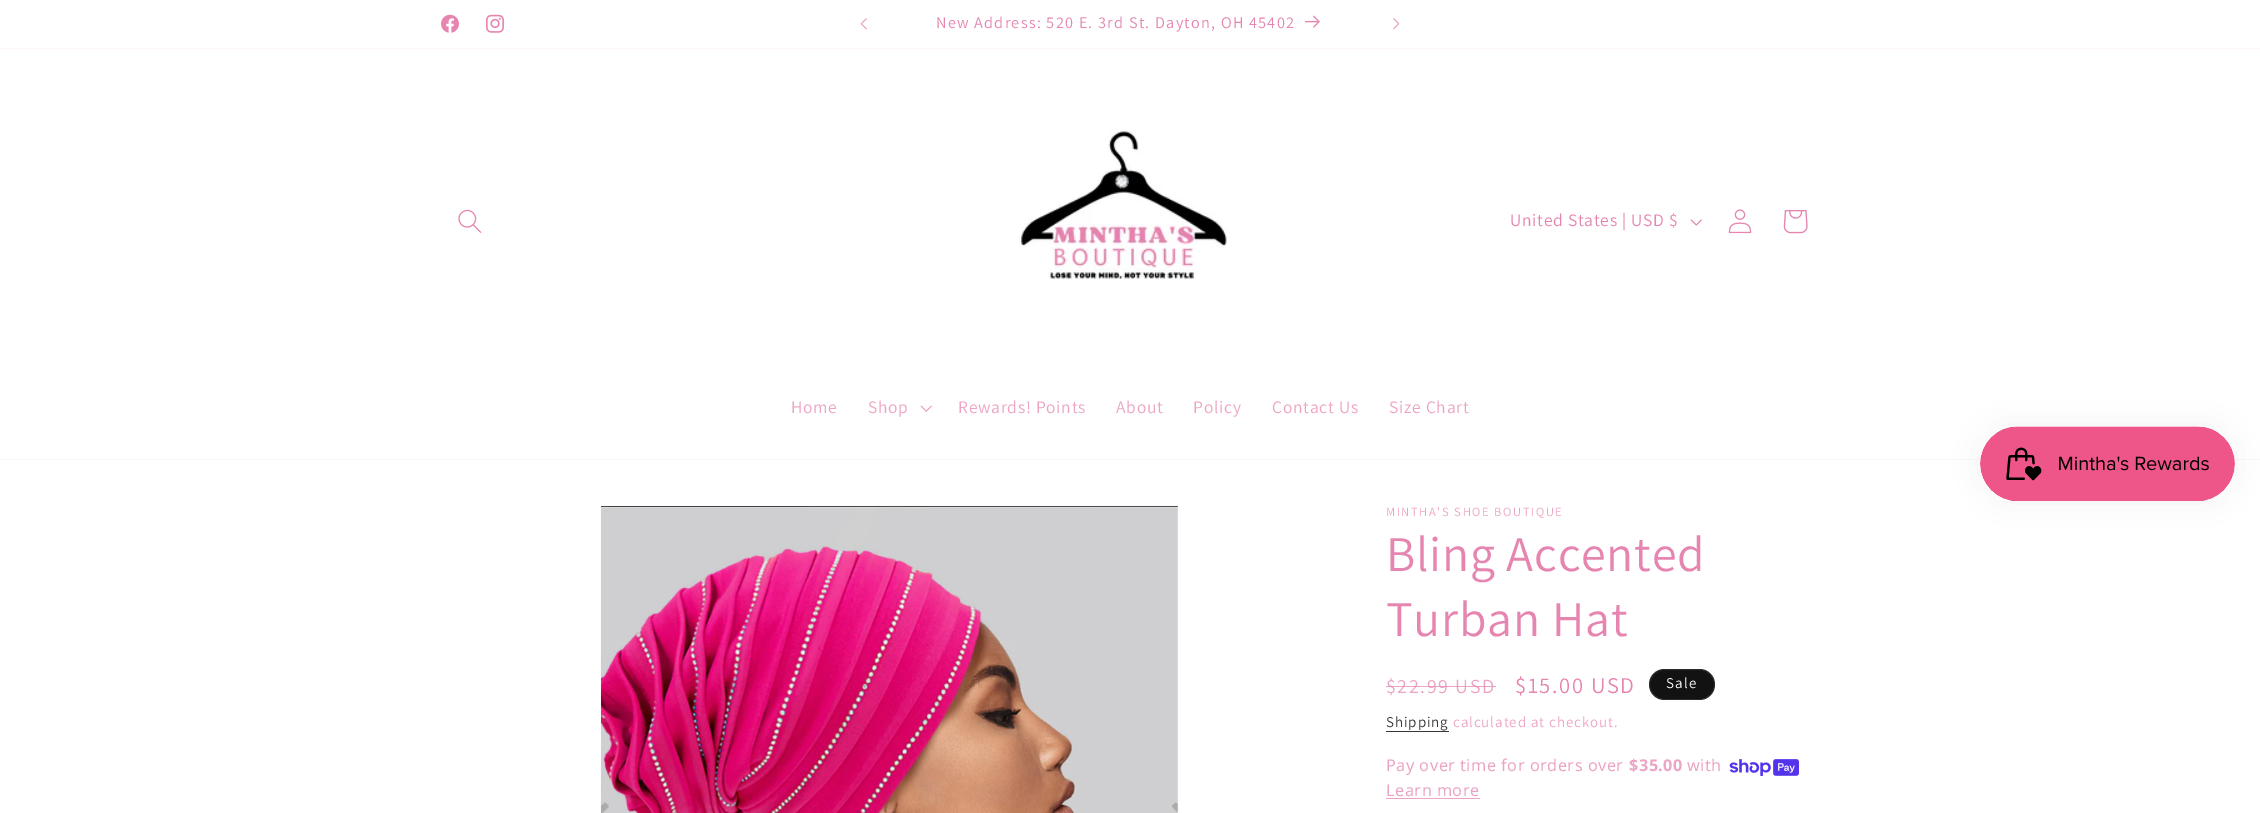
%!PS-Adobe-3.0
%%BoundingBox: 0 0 2260 813
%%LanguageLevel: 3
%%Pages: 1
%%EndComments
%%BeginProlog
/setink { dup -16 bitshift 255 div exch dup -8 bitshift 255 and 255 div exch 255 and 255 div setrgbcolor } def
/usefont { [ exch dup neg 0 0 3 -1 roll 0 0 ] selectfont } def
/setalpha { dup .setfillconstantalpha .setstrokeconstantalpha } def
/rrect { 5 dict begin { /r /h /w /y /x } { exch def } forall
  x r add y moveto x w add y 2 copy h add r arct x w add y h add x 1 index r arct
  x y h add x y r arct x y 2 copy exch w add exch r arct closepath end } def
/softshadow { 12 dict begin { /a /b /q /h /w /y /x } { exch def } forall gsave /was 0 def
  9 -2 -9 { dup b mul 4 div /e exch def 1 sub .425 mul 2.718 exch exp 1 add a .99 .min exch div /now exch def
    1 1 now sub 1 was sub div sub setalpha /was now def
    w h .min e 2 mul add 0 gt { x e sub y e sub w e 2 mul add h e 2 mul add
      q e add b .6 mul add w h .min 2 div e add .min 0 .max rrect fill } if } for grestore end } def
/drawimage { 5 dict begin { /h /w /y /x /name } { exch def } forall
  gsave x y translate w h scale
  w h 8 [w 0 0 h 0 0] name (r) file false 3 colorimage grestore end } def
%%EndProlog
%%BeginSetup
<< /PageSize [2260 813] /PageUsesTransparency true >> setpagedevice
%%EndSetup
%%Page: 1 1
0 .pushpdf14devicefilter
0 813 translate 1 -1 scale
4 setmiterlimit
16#FFFFFF setink
0 0 2260 813 rectfill
16#FDF5F9 setink
0 48 2260 1 rectfill
(img1.raw) 441 14 18 19 drawimage
(img2.raw) 486 14 18 19 drawimage
(img3.raw) 860 18 7 12 drawimage
/Assistant-Regular 16.25 usefont
16#E585B0 setink
936 28 moveto 1.25 0 (New Address: 520 E. 3rd St. Dayton, OH 45402) ashow
(img4.raw) 1305 15 15 13 drawimage
(img5.raw) 1393 18 7 12 drawimage
16#FDF5F9 setink
0 459 2260 1 rectfill
(img6.raw) 458 209 24 24 drawimage
(img7.raw) 1019 129 208 150 drawimage
/Assistant-Regular 17.5 usefont
16#E585B0 setink
1510 226 moveto 0.75 0 (United States | USD $) ashow
(img8.raw) 1690 219 12 7 drawimage
(img9.raw) 1728 209 24 25 drawimage
(img10.raw) 1783 210 25 24 drawimage
16#ECA4C4 setink
791 413 moveto 0.75 0 (Home) ashow
868 413 moveto 0.75 0 (Shop) ashow
(img11.raw) 920 405 12 7 drawimage
958 413 moveto 0.75 0 (Rewards! Points) ashow
1116 413 moveto 0.75 0 (About) ashow
1193 413 moveto 0.75 0 (Policy) ashow
1272 413 moveto 0.75 0 (Contact Us) ashow
1389 413 moveto 0.75 0 (Size Chart) ashow
16#000000 setink
1980 426 255 75 37.5 15.5 0.05 softshadow
(img12.raw) 1980 426 255 75 drawimage
16#FEF9FB setink
600.5 505.5 578 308 rectstroke
(img13.raw) 601 506 577 307 drawimage
/Assistant-Regular 12.5 usefont
16#ECA4C4 setink
1386 516 moveto 1.6 0 (MINTHA'S SHOE BOUTIQUE) ashow
/Assistant-Regular 50 usefont
16#E585B0 setink
1386 571 moveto 0.75 0 (Bling Accented) ashow
1386 636 moveto 0.75 0 (Turban Hat) ashow
/Assistant-Regular 20 usefont
16#ECA4C4 setink
1386 693 moveto 1.6 0 ($22.99 USD) ashow
0.75 setalpha
16#E585B0 setink
1386 686 110 1 rectfill
/Assistant-Regular 22.5 usefont
1 setalpha
1515 693 moveto 1.6 0 ($15.00 USD) ashow
16#121212 setink
1649 669 66 31 15.5 rrect fill
0.1 setalpha
16#FFFFFF setink
1649.5 669.5 65 30 15 rrect stroke
/Assistant-Regular 15 usefont
1 setalpha
1666 688 moveto 1.25 0 (Sale) ashow
16#363636 setink
1386 727 moveto 0.9 0 (Shipping) ashow
1386 731 63 1 rectfill
16#ECA4C4 setink
1453 727 moveto 0.9 0 (calculated at checkout.) ashow
/NotoSans-Regular 16.25 usefont
1386 771 moveto 0.5 0 (Pay over time for orders over) ashow
/NotoSans-Bold 16.25 usefont
1629 771 moveto 0.5 0 ($35.00) ashow
/NotoSans-Regular 16.25 usefont
1687 771 moveto 0.5 0 (with) ashow
(img14.raw) 1729 759 70 17 drawimage
1386 796 moveto 0.5 0 (Learn more) ashow
1386 798 94 1 rectfill
.poppdf14devicefilter showpage
%%EOF
